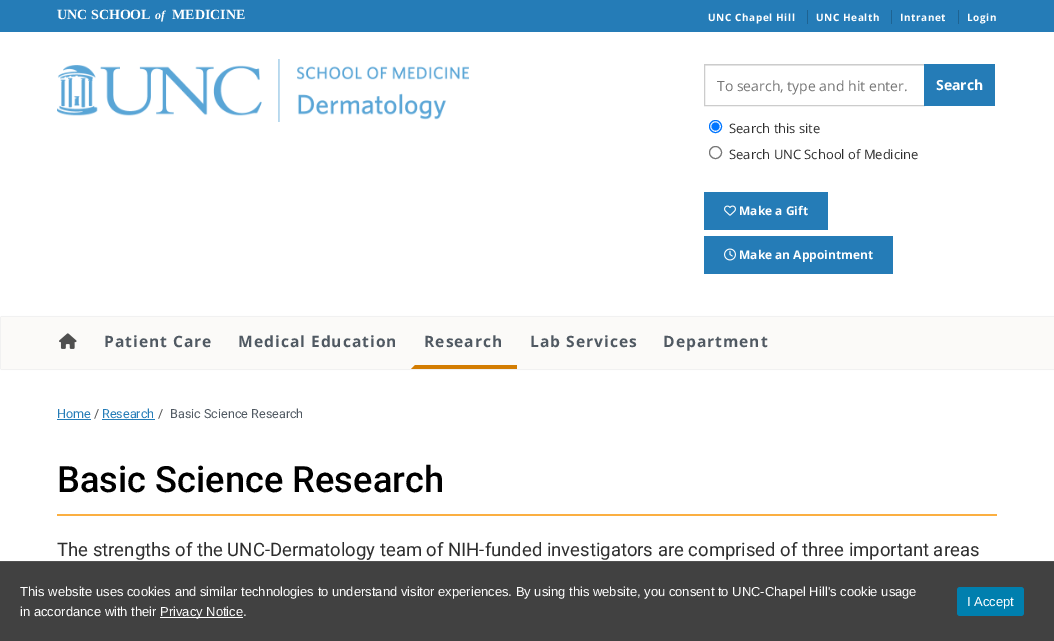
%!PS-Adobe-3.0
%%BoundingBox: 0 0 1054 641
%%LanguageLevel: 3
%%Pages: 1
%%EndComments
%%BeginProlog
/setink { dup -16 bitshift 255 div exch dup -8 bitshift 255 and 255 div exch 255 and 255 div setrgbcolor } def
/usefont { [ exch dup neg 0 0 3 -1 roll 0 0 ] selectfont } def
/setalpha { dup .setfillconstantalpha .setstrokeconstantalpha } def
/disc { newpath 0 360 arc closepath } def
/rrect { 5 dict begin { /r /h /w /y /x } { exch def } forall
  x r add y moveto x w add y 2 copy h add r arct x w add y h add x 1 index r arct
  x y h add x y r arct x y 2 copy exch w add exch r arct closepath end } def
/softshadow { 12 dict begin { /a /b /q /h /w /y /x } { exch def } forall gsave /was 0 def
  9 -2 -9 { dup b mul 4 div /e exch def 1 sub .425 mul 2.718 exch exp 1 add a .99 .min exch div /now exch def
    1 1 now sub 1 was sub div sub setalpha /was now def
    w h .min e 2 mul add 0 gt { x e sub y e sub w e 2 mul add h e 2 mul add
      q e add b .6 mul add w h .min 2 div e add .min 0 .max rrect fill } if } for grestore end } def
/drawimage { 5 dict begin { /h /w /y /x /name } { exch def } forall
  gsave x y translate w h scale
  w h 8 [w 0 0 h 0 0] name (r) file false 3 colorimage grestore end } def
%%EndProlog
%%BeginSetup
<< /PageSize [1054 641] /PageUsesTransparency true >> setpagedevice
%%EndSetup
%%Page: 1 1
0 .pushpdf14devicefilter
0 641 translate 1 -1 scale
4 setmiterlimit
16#FFFFFF setink
0 0 1054 641 rectfill
16#257CB7 setink
0 0 1054 32 rectfill
/LiberationSerif-Bold 14 usefont
16#FFFFFF setink
57 19 moveto (UNC SCHOOL) show
/LiberationSerif-BoldItalic 12 usefont
155 19 moveto (of) show
/LiberationSerif-Bold 14 usefont
172 19 moveto (MEDICINE) show
/OpenSans-Bold 10 usefont
708 21 moveto 0.6 0 (UNC Chapel Hill) ashow
16#1E6392 setink
807 10 1 14 rectfill
16#FFFFFF setink
816 21 moveto 0.6 0 (UNC Health) ashow
16#1E6392 setink
891 10 1 14 rectfill
16#FFFFFF setink
900 21 moveto 0.6 0 (Intranet) ashow
16#1E6392 setink
958 10 1 14 rectfill
16#FFFFFF setink
967 21 moveto 0.6 0 (Login) ashow
(img1.raw) 57 59 412 63 drawimage
16#ECECEC setink
705 65 219 1 rectfill
16#CCCCCC setink
704.5 64.5 220 41 rectstroke
/OpenSans-Regular 14 usefont
16#767676 setink
717 91 moveto (To search, type and hit enter.) show
16#257CB7 setink
924 64 71 42 rectfill
/OpenSans-Bold 14 usefont
16#FFFFFF setink
936 90 moveto (Search) show
16#0075FF setink
715.5 126.5 6 disc stroke
715.5 126.5 4 disc fill
/OpenSans-Regular 13 usefont
16#2E2E2E setink
729 133 moveto (Search this site) show
16#767676 setink
715.5 152.5 6 disc stroke
16#2E2E2E setink
729 159 moveto (Search UNC School of Medicine) show
16#257CB7 setink
704 192 124 38 rectfill
(img2.raw) 724 205 12 11 drawimage
/OpenSans-Bold 12 usefont
16#FFFFFF setink
739 215 moveto (Make a Gift) show
16#257CB7 setink
704 236 189 38 rectfill
(img3.raw) 724 248 12 13 drawimage
16#FFFFFF setink
739 259 moveto (Make an Appointment) show
16#BDBDBD setink
1 317 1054 52 0 0.5 0.75 softshadow
16#FBFAF8 setink
1 317 1053 52 rectfill
(img4.raw) 59 333 18 16 drawimage
/OpenSans-Bold 15.6 usefont
16#505962 setink
104 347 moveto 1 0 (Patient Care) ashow
238 347 moveto 1 0 (Medical Education) ashow
16#D37D02 setink
517 369 moveto 411 369 lineto 415 365 lineto 517 365 lineto closepath fill
16#505962 setink
424 347 moveto 1 0 (Research) ashow
530 347 moveto 1 0 (Lab Services) ashow
663 347 moveto 1 0 (Department) ashow
/Roboto-Regular 12.6 usefont
16#257CB7 setink
57 418 moveto (Home) show
57 419 34 1 rectfill
16#4F4F4F setink
94 418 moveto (/) show
16#257CB7 setink
102 418 moveto (Research) show
102 419 53 1 rectfill
16#4F4F4F setink
158 418 moveto (/) show
16#505962 setink
170 418 moveto (Basic Science Research) show
16#FBAF41 setink
57 514 940 2 rectfill
/Roboto-Medium 36.25 usefont
16#000000 setink
57 492 moveto (Basic Science Research) show
/Roboto-Regular 18.5 usefont
16#2E2E2E setink
57 556 moveto (The strengths of the UNC-Dermatology team of NIH-funded investigators are comprised of three important areas) show
16#414141 setink
0 562 1054 79 rectfill
16#515151 setink
0 561 1054 1 rectfill
/LiberationSans-Regular 13 usefont
16#FFFFFF setink
20 596 moveto (This website uses cookies and similar technologies to understand visitor experiences. By using this website, you consent to UNC-Chapel Hill's cookie usage) show
20 616 moveto (in accordance with their) show
160 617 83 1 rectfill
160 616 moveto (Privacy Notice.) show
16#007FAE setink
957 587 67 29 3 rrect fill
16#FFFFFF setink
967 606 moveto (I Accept) show
.poppdf14devicefilter showpage
%%EOF
